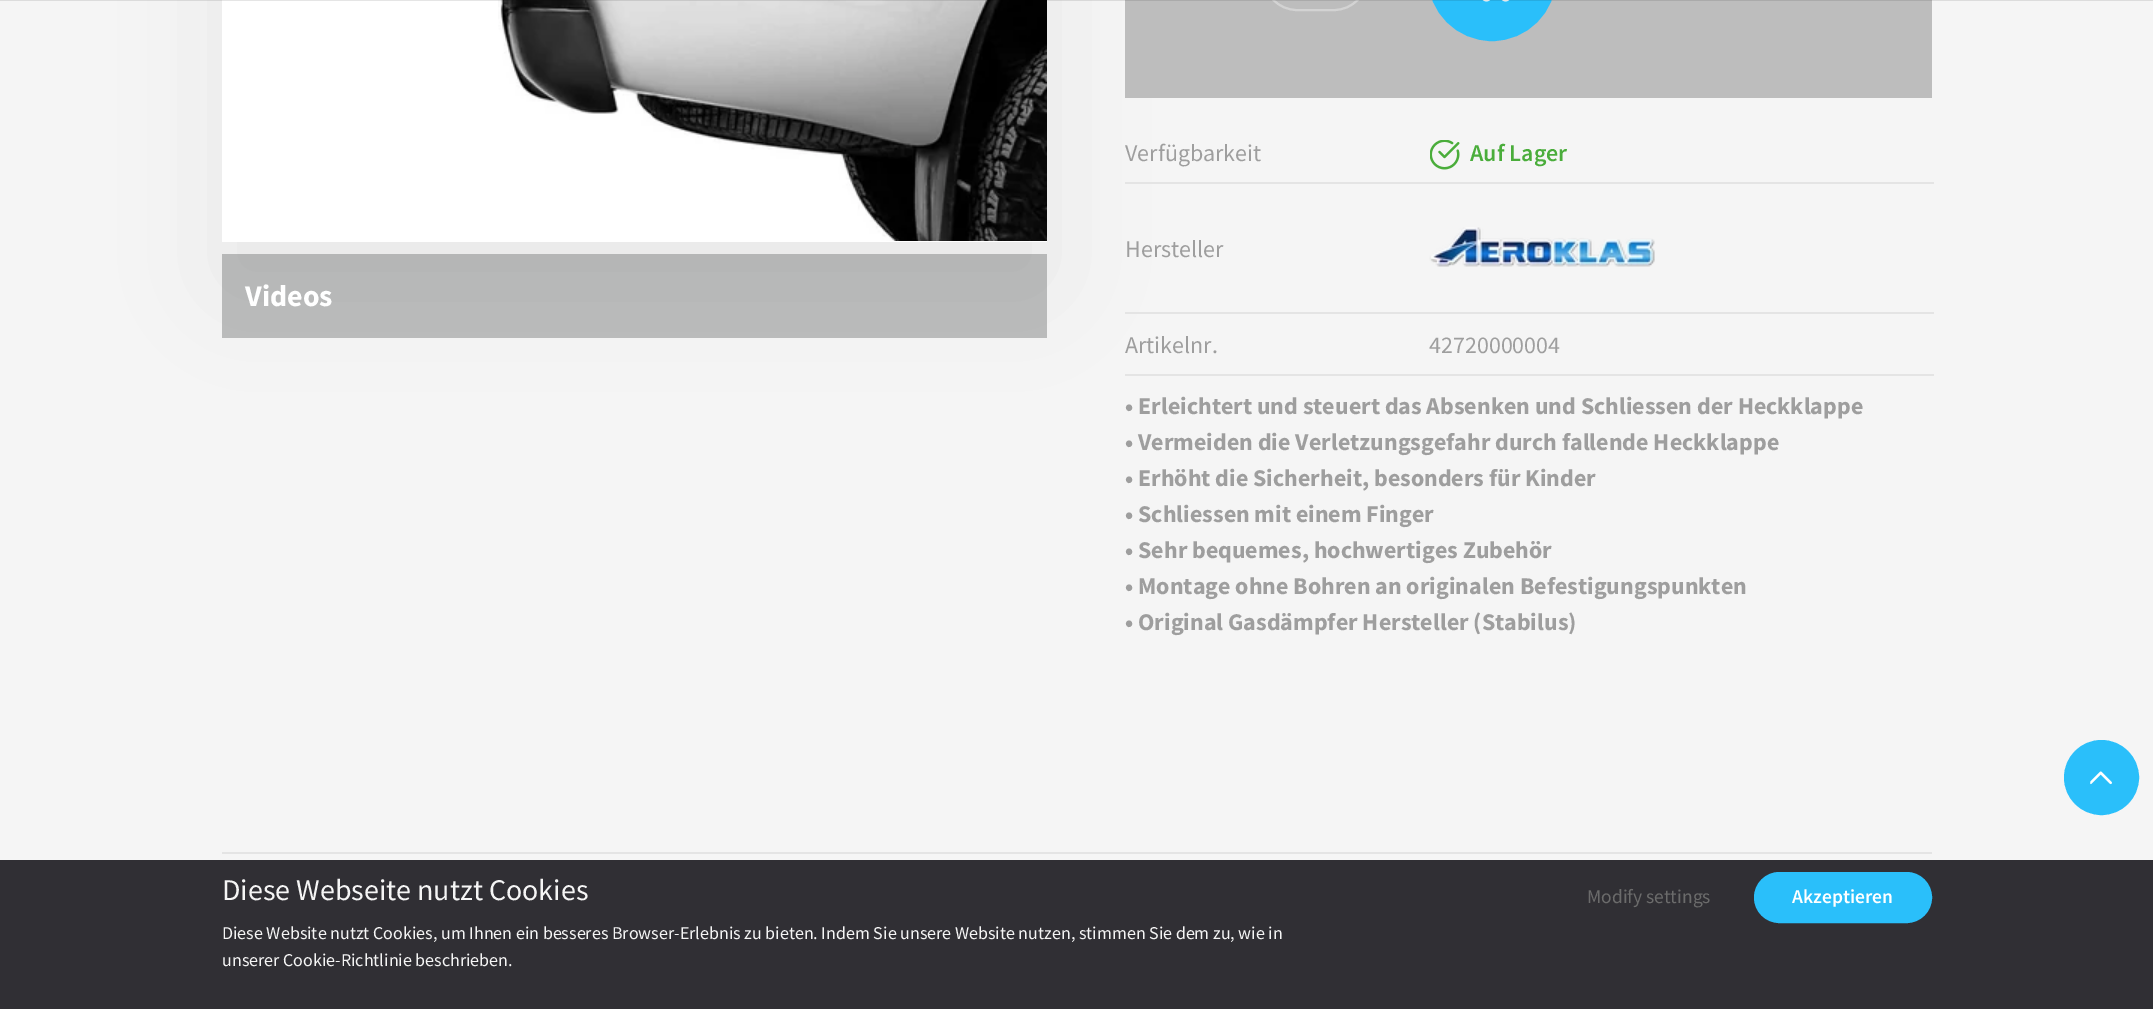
%!PS-Adobe-3.0
%%BoundingBox: 0 0 2153 1009
%%LanguageLevel: 3
%%Pages: 1
%%EndComments
%%BeginProlog
/setink { dup -16 bitshift 255 div exch dup -8 bitshift 255 and 255 div exch 255 and 255 div setrgbcolor } def
/usefont { [ exch dup neg 0 0 3 -1 roll 0 0 ] selectfont } def
/setalpha { dup .setfillconstantalpha .setstrokeconstantalpha } def
/disc { newpath 0 360 arc closepath } def
/rrect { 5 dict begin { /r /h /w /y /x } { exch def } forall
  x r add y moveto x w add y 2 copy h add r arct x w add y h add x 1 index r arct
  x y h add x y r arct x y 2 copy exch w add exch r arct closepath end } def
/softshadow { 12 dict begin { /a /b /q /h /w /y /x } { exch def } forall gsave /was 0 def
  9 -2 -9 { dup b mul 4 div /e exch def 1 sub .425 mul 2.718 exch exp 1 add a .99 .min exch div /now exch def
    1 1 now sub 1 was sub div sub setalpha /was now def
    w h .min e 2 mul add 0 gt { x e sub y e sub w e 2 mul add h e 2 mul add
      q e add b .6 mul add w h .min 2 div e add .min 0 .max rrect fill } if } for grestore end } def
/drawimage { 5 dict begin { /h /w /y /x /name } { exch def } forall
  gsave x y translate w h scale
  w h 8 [w 0 0 h 0 0] name (r) file false 3 colorimage grestore end } def
%%EndProlog
%%BeginSetup
<< /PageSize [2153 1009] /PageUsesTransparency true >> setpagedevice
%%EndSetup
%%Page: 1 1
0 .pushpdf14devicefilter
0 1009 translate 1 -1 scale
4 setmiterlimit
16#F5F5F5 setink
0 0 2153 1009 rectfill
16#BCBDBD setink
222 254 825 84 rectfill
16#000000 setink
222 -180 825 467 0 60 0.05 softshadow
16#FFFFFF setink
222 0 825 242 rectfill
(img1.raw) 498 0 549 241 drawimage
16#BDBDBD setink
1125 0 807 98 rectfill
16#D3D3D3 setink
2 setlinewidth
1264 -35 103 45 33 rrect stroke
16#2ABFFA setink
1429 -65 126 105 63 rrect gsave fill grestore
stroke
(img2.raw) 1482 0 28 2 drawimage
0.1 setalpha
16#000000 setink
0 0 2153 1 rectfill
/SourceSansPro-Bold 30 usefont
1 setalpha
16#FFFFFF setink
245 306 moveto (Videos) show
/SourceSansPro-Regular 24 usefont
16#9E9E9E setink
1125 161 moveto (Verfügbarkeit) show
(img3.raw) 1430 140 30 30 drawimage
/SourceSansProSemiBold-SemiBold 24 usefont
16#4AAD3B setink
1470 161 moveto (Auf Lager) show
16#E4E4E4 setink
1125 182 809 2 rectfill
(img4.raw) 1429 227 226 40 drawimage
/SourceSansPro-Regular 24 usefont
16#9E9E9E setink
1125 257 moveto (Hersteller) show
1125 353 moveto (Artikelnr.) show
16#E4E4E4 setink
1125 312 809 2 rectfill
16#9E9E9E setink
1429 353 moveto (42720000004) show
16#E4E4E4 setink
1125 374 809 2 rectfill
/SourceSansPro-Bold 24 usefont
16#9E9E9E setink
[
    [(• Erleichtert und steuert das Absenken und Schliessen der Heckklappe) 1125 414]
    [(• Vermeiden die Verletzungsgefahr durch fallende Heckklappe) 1125 450]
    [(• Erhöht die Sicherheit, besonders für Kinder) 1125 486]
    [(• Schliessen mit einem Finger) 1125 522]
    [(• Sehr bequemes, hochwertiges Zubehör) 1125 558]
    [(• Montage ohne Bohren an originalen Befestigungspunkten) 1125 594]
    [(• Original Gasdämpfer Hersteller \(Stabilus\)) 1125 630]
] { aload pop moveto show } forall
16#E4E4E4 setink
222 852 1710 2 rectfill
16#2ABFFA setink
2101.5 777.5 36.5 disc gsave fill grestore
stroke
(img5.raw) 2090 771 22 14 drawimage
16#302F34 setink
0 860 2153 149 rectfill
/SourceSansPro-Regular 30 usefont
16#F5F5F5 setink
222 900 moveto (Diese Webseite nutzt Cookies) show
/SourceSansPro-Regular 18 usefont
222 939 moveto (Diese Website nutzt Cookies, um Ihnen ein besseres Browser-Erlebnis zu bieten. Indem Sie unsere Website nutzen, stimmen Sie dem zu, wie in) show
222 966 moveto (unserer Cookie-Richtlinie beschrieben.) show
/SourceSansPro-Regular 19.5 usefont
16#6B6B6B setink
1587 903 moveto (Modify settings) show
16#2ABFFA setink
1755 873 176 49 24.5 rrect gsave fill grestore
stroke
/SourceSansProSemiBold-SemiBold 19.5 usefont
16#FFFFFF setink
1792 903 moveto (Akzeptieren) show
.poppdf14devicefilter showpage
%%EOF
